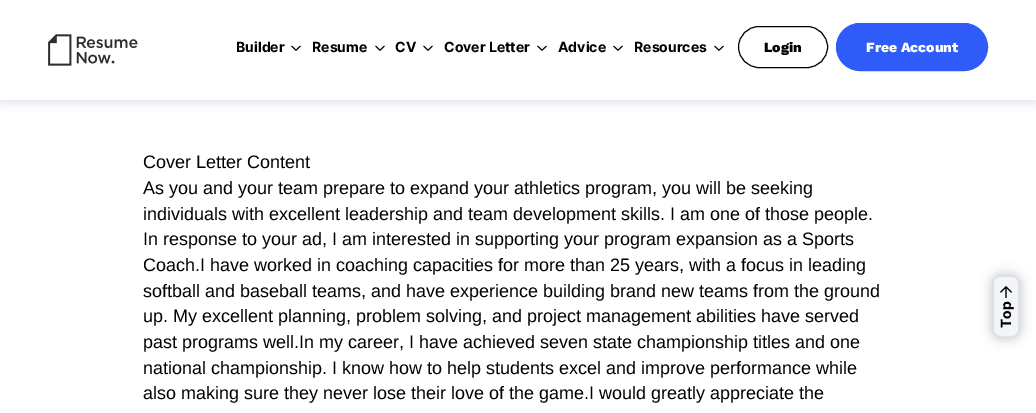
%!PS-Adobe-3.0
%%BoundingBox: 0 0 1036 413
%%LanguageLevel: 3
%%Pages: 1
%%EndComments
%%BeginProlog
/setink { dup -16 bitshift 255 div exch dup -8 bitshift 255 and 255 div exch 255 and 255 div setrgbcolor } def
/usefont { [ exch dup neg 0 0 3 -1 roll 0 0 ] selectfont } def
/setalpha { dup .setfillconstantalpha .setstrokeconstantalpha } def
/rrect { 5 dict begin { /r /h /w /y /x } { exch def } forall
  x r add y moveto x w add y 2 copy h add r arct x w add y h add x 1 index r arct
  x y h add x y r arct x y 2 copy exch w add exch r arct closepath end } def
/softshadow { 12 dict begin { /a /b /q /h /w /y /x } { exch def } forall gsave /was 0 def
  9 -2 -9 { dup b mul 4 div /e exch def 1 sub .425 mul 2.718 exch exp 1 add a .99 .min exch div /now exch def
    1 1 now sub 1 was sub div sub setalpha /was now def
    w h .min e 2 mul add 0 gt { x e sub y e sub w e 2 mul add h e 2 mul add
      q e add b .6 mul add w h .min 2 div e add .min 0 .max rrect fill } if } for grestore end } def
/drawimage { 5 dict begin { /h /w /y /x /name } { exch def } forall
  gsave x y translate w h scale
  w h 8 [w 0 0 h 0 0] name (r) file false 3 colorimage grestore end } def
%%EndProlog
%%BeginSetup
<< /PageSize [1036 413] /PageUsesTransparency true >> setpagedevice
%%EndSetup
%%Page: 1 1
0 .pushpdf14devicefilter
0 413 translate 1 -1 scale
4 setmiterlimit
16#FFFFFF setink
0 0 1036 413 rectfill
16#5B738B setink
0 4 1036 100 0 4 0.16 softshadow
16#FFFFFF setink
0 0 1036 100 rectfill
(img1.raw) 48 34 90 32 drawimage
/Inter-Bold 14 usefont
16#000000 setink
236 52 moveto (Builder) show
(img2.raw) 291 45 10 6 drawimage
312 52 moveto (Resume) show
(img2.raw) 375 45 10 6 drawimage
395 52 moveto (CV) show
(img2.raw) 423 45 10 6 drawimage
444 52 moveto (Cover Letter) show
(img2.raw) 537 45 10 6 drawimage
558 52 moveto (Advice) show
(img2.raw) 613 45 10 6 drawimage
634 52 moveto (Resources) show
(img2.raw) 714 45 10 6 drawimage
738.5 26.5 89 41 20.5 rrect stroke
/WorkSans-ExtraBold 14 usefont
764 52 moveto (Login) show
16#2F5CF8 setink
836.5 23.5 151 47 23.5 rrect gsave fill grestore
stroke
16#FFFFFF setink
866 52 moveto (Free Account) show
/LiberationSans-Regular 18 usefont
16#000000 setink
[
    [(Cover Letter Content) 143 168]
    [(As you and your team prepare to expand your athletics program, you will be seeking) 143 194]
    [(individuals with excellent leadership and team development skills. I am one of those people.) 143 220]
    [(In response to your ad, I am interested in supporting your program expansion as a Sports) 143 245]
    [(Coach.I have worked in coaching capacities for more than 25 years, with a focus in leading) 143 271]
    [(softball and baseball teams, and have experience building brand new teams from the ground) 143 297]
    [(up. My excellent planning, problem solving, and project management abilities have served) 143 322]
    [(past programs well.In my career, I have achieved seven state championship titles and one) 143 348]
    [(national championship. I know how to help students excel and improve performance while) 143 374]
    [(also making sure they never lose their love of the game.I would greatly appreciate the) 143 399]
] { aload pop moveto show } forall
992 275 28 63 8 6 0.24 softshadow
16#F4F5FB setink
993 276 26 61 7 rrect gsave fill grestore
16#DDE2E7 setink
2 setlinewidth
stroke
(img3.raw) 1000 286 12 12 drawimage
/Inter-Bold 14 usefont
16#000000 setink
gsave 1011 328 translate -90 rotate 0 0 moveto (Top) show grestore
.poppdf14devicefilter showpage
%%EOF
